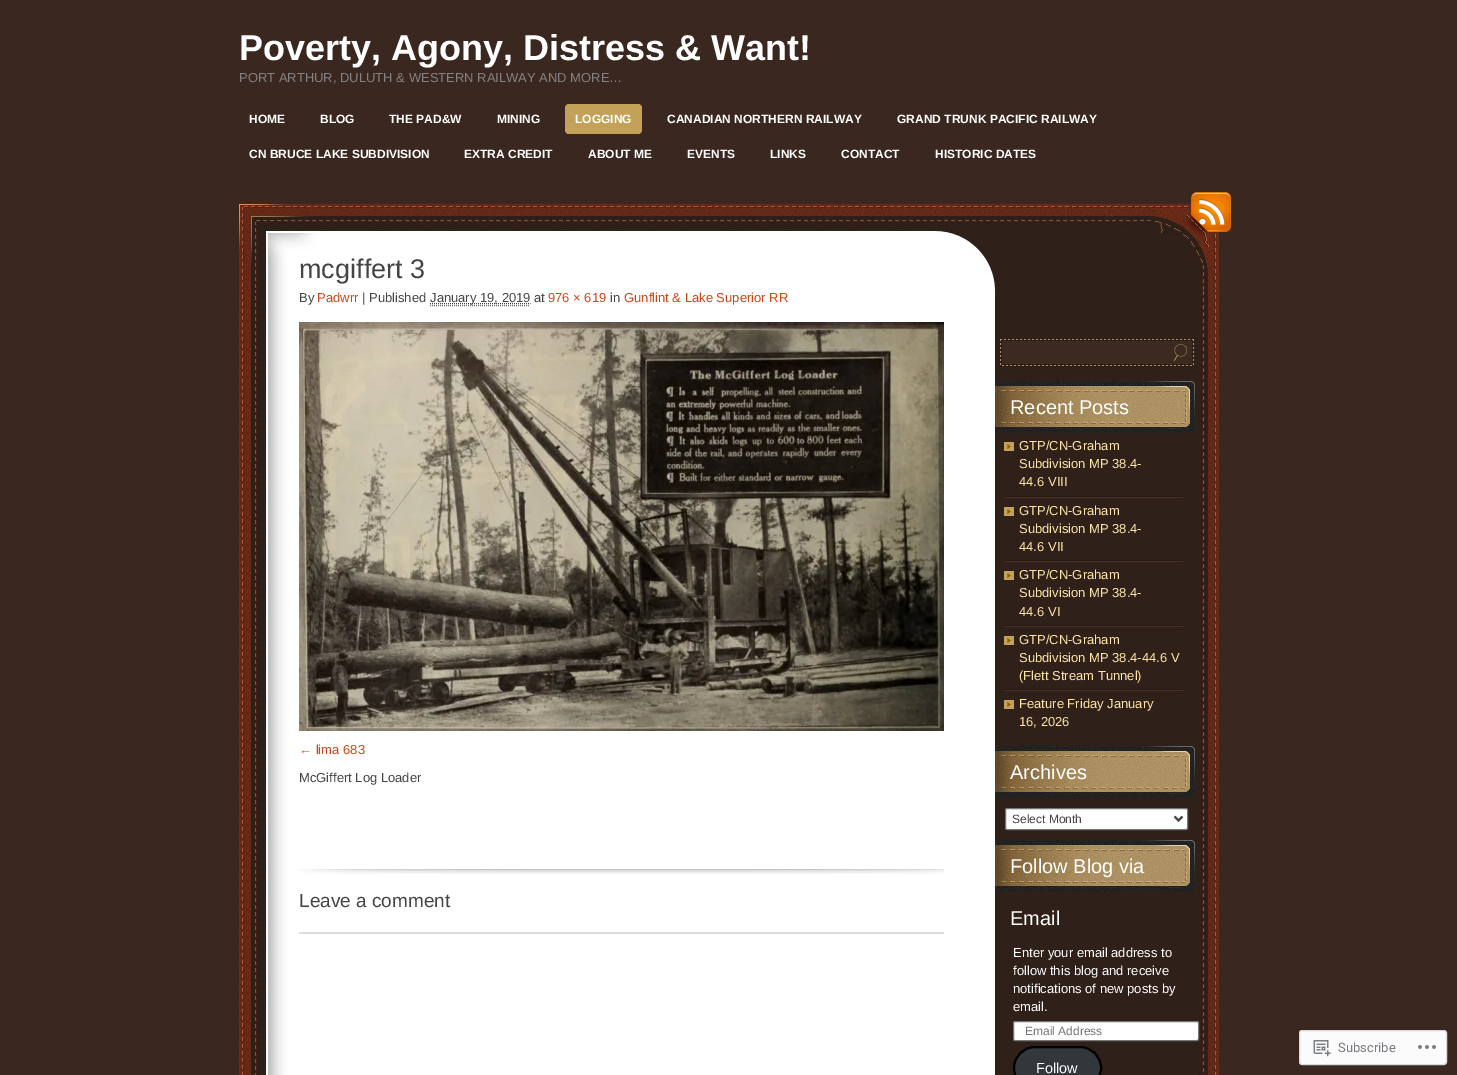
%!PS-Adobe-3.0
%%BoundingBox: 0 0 1457 1075
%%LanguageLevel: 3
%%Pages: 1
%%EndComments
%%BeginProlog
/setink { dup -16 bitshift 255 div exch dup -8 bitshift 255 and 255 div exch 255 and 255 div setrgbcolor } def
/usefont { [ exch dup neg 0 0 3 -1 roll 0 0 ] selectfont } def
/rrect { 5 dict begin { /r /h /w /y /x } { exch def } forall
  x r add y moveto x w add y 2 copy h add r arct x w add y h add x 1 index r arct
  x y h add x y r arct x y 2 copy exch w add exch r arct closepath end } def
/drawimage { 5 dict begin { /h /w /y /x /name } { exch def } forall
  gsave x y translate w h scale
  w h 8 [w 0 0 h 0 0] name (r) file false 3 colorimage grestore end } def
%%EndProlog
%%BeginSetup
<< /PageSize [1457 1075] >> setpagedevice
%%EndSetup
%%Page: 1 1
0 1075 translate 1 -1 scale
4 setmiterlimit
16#3A2820 setink
0 0 1457 1075 rectfill
/LiberationSans-Bold 36 usefont
16#FFFFFF setink
239 60 moveto (Poverty, Agony, Distress & Want!) show
/LiberationSans-Regular 13 usefont
16#848282 setink
239 82 moveto (PORT ARTHUR, DULUTH & WESTERN RAILWAY AND MORE…) show
/LiberationSans-Bold 12 usefont
16#FFFFFF setink
[
    [(HOME) 249 123]
    [(BLOG) 320 123]
    [(THE PAD&W) 389 123]
    [(MINING) 497 123]
] { aload pop moveto show } forall
16#C4A158 setink
565 104 77 30 4 rrect fill
16#FFFFFF setink
[
    [(LOGGING) 575 123]
    [(CANADIAN NORTHERN RAILWAY) 667 123]
    [(GRAND TRUNK PACIFIC RAILWAY) 897 123]
    [(CN BRUCE LAKE SUBDIVISION) 249 158]
    [(EXTRA CREDIT) 464 158]
    [(ABOUT ME) 588 158]
    [(EVENTS) 687 158]
    [(LINKS) 770 158]
    [(CONTACT) 841 158]
    [(HISTORIC DATES) 935 158]
] { aload pop moveto show } forall
(img1.raw) 239 290 980 785 drawimage
(img3.raw) 239 204 980 86 drawimage
(img2.raw) 1181 192 50 55 drawimage
(img4.raw) 299 869 645 5 drawimage
/LiberationSans-Regular 27 usefont
16#444444 setink
299 278 moveto (mcgiffert 3) show
/LiberationSans-Regular 13 usefont
299 302 moveto (By) show
16#CD4517 setink
317 302 moveto (Padwrr) show
16#444444 setink
362 302 moveto (| Published) show
[1 1] 0 setdash
430 303.5 moveto 530.5 303.5 lineto stroke
430 302 moveto (January 19, 2019 at) show
16#666666 setink
430 305.5 moveto 530 305.5 lineto stroke
16#CD4517 setink
548 302 moveto (976 × 619) show
16#444444 setink
610 302 moveto (in) show
16#CD4517 setink
624 302 moveto (Gunflint & Lake Superior RR) show
(img5.raw) 299 322 645 409 drawimage
299 754 moveto (← lima 683) show
16#444444 setink
299 782 moveto (McGiffert Log Loader) show
/LiberationSans-Regular 19 usefont
299 907 moveto (Leave a comment) show
16#DCDCDE setink
299 932 645 2 rectfill
(img6.raw) 1000 339 194 27 drawimage
(img7.raw) 995 381 200 52 drawimage
/LiberationSans-Regular 20 usefont
16#FFFFFF setink
1010 414 moveto (Recent Posts) show
(img8.raw) 1004 442 10 9 drawimage
16#271913 setink
1004 496 179 1 rectfill
/LiberationSans-Regular 13 usefont
16#FFE6A8 setink
[
    [(GTP/CN-Graham) 1019 450]
    [(Subdivision MP 38.4-) 1019 468]
    [(44.6 VIII) 1019 486]
] { aload pop moveto show } forall
(img8.raw) 1004 507 10 9 drawimage
16#453322 setink
1004 497 179 1 rectfill
16#271913 setink
1004 560 179 1 rectfill
16#FFE6A8 setink
[
    [(GTP/CN-Graham) 1019 515]
    [(Subdivision MP 38.4-) 1019 533]
    [(44.6 VII) 1019 551]
] { aload pop moveto show } forall
(img8.raw) 1004 571 10 9 drawimage
16#453322 setink
1004 561 179 1 rectfill
16#271913 setink
1004 625 179 1 rectfill
16#FFE6A8 setink
[
    [(GTP/CN-Graham) 1019 579]
    [(Subdivision MP 38.4-) 1019 597]
    [(44.6 VI) 1019 616]
] { aload pop moveto show } forall
(img8.raw) 1004 636 10 9 drawimage
16#453322 setink
1004 626 179 1 rectfill
16#271913 setink
1004 689 179 1 rectfill
16#FFE6A8 setink
[
    [(GTP/CN-Graham) 1019 644]
    [(Subdivision MP 38.4-44.6 V) 1019 662]
    [(\(Flett Stream Tunnel\)) 1019 680]
] { aload pop moveto show } forall
(img8.raw) 1004 700 10 9 drawimage
16#453322 setink
1004 690 179 1 rectfill
16#FFE6A8 setink
1019 708 moveto (Feature Friday January) show
1019 726 moveto (16, 2026) show
(img7.raw) 995 746 200 52 drawimage
/LiberationSans-Regular 20 usefont
16#FFFFFF setink
1010 779 moveto (Archives) show
1005.5 808.5 182 21 1.5 rrect gsave fill grestore
16#767676 setink
[] 0 setdash
stroke
16#444444 setink
2 setlinewidth
1174.5 816.5 moveto 1178.5 820.5 lineto 1182.5 816.5 lineto stroke
/LiberationSans-Regular 12 usefont
1012 823 moveto (Select Month) show
(img7.raw) 995 840 200 52 drawimage
/LiberationSans-Regular 20 usefont
16#FFFFFF setink
1010 873 moveto (Follow Blog via) show
1010 925 moveto (Email) show
/LiberationSans-Regular 13 usefont
[
    [(Enter your email address to) 1013 957]
    [(follow this blog and receive) 1013 975]
    [(notifications of new posts by) 1013 993]
    [(email.) 1013 1011]
] { aload pop moveto show } forall
1013.5 1021.5 185 19 1.5 rrect gsave fill grestore
16#767676 setink
1 setlinewidth
stroke
/LiberationSans-Regular 12 usefont
16#757575 setink
1025 1035 moveto (Email Address) show
16#32373C setink
1014 1047 87 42 21 rrect gsave fill grestore
16#000000 setink
2 setlinewidth
stroke
/LiberationSans-Regular 14.5 usefont
16#FFFFFF setink
1036 1073 moveto (Follow) show
16#FBFBFB setink
1299.5 1030.5 147 34 2.5 rrect gsave fill grestore
16#D9D8DA setink
1 setlinewidth
stroke
(img9.raw) 1313 1040 18 17 drawimage
/Roboto-Regular 13 usefont
16#777A80 setink
1338 1052 moveto (Subscribe) show
(img10.raw) 1418 1045 18 4 drawimage
showpage
%%EOF
